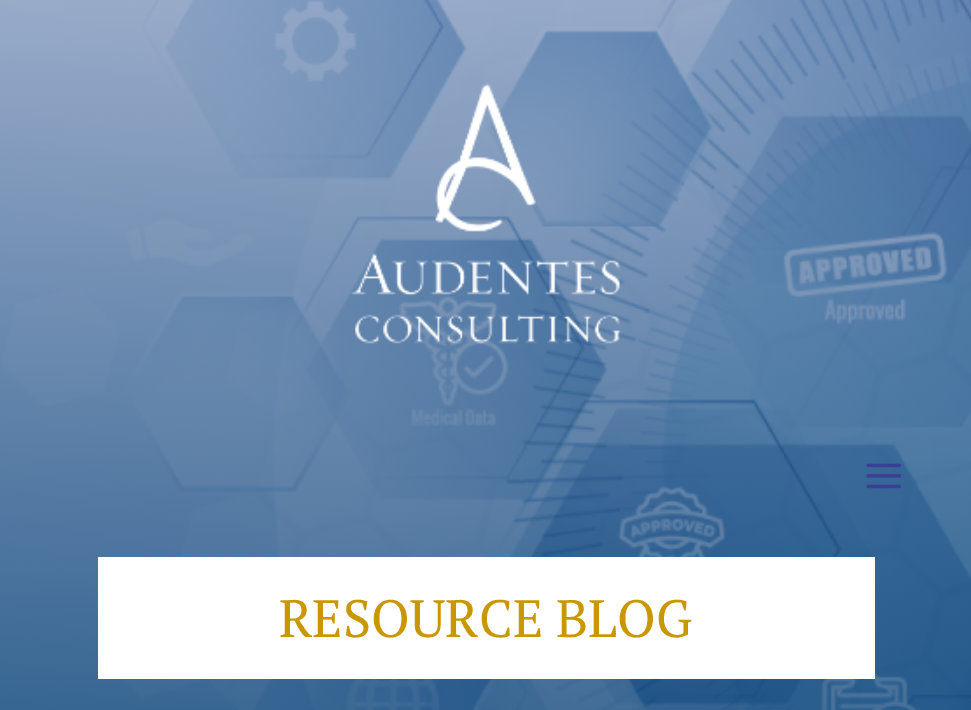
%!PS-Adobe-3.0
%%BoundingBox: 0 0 971 710
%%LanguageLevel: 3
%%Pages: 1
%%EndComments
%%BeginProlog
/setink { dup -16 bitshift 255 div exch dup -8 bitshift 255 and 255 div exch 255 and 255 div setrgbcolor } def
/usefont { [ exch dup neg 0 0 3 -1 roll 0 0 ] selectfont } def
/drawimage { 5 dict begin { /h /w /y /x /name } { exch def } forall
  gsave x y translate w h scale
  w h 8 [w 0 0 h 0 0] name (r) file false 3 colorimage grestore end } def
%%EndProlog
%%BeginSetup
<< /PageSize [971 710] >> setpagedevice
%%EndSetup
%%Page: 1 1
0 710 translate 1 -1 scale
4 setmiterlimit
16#FFFFFF setink
0 0 971 710 rectfill
(img1.raw) 0 0 971 710 drawimage
(img2.raw) 351 83 271 261 drawimage
(img3.raw) 866 463 36 26 drawimage
98 557 777 122 rectfill
/PTSerif-Regular 52.5 usefont
16#C99700 setink
279 637 moveto (RESOURCE BLOG) show
showpage
%%EOF
